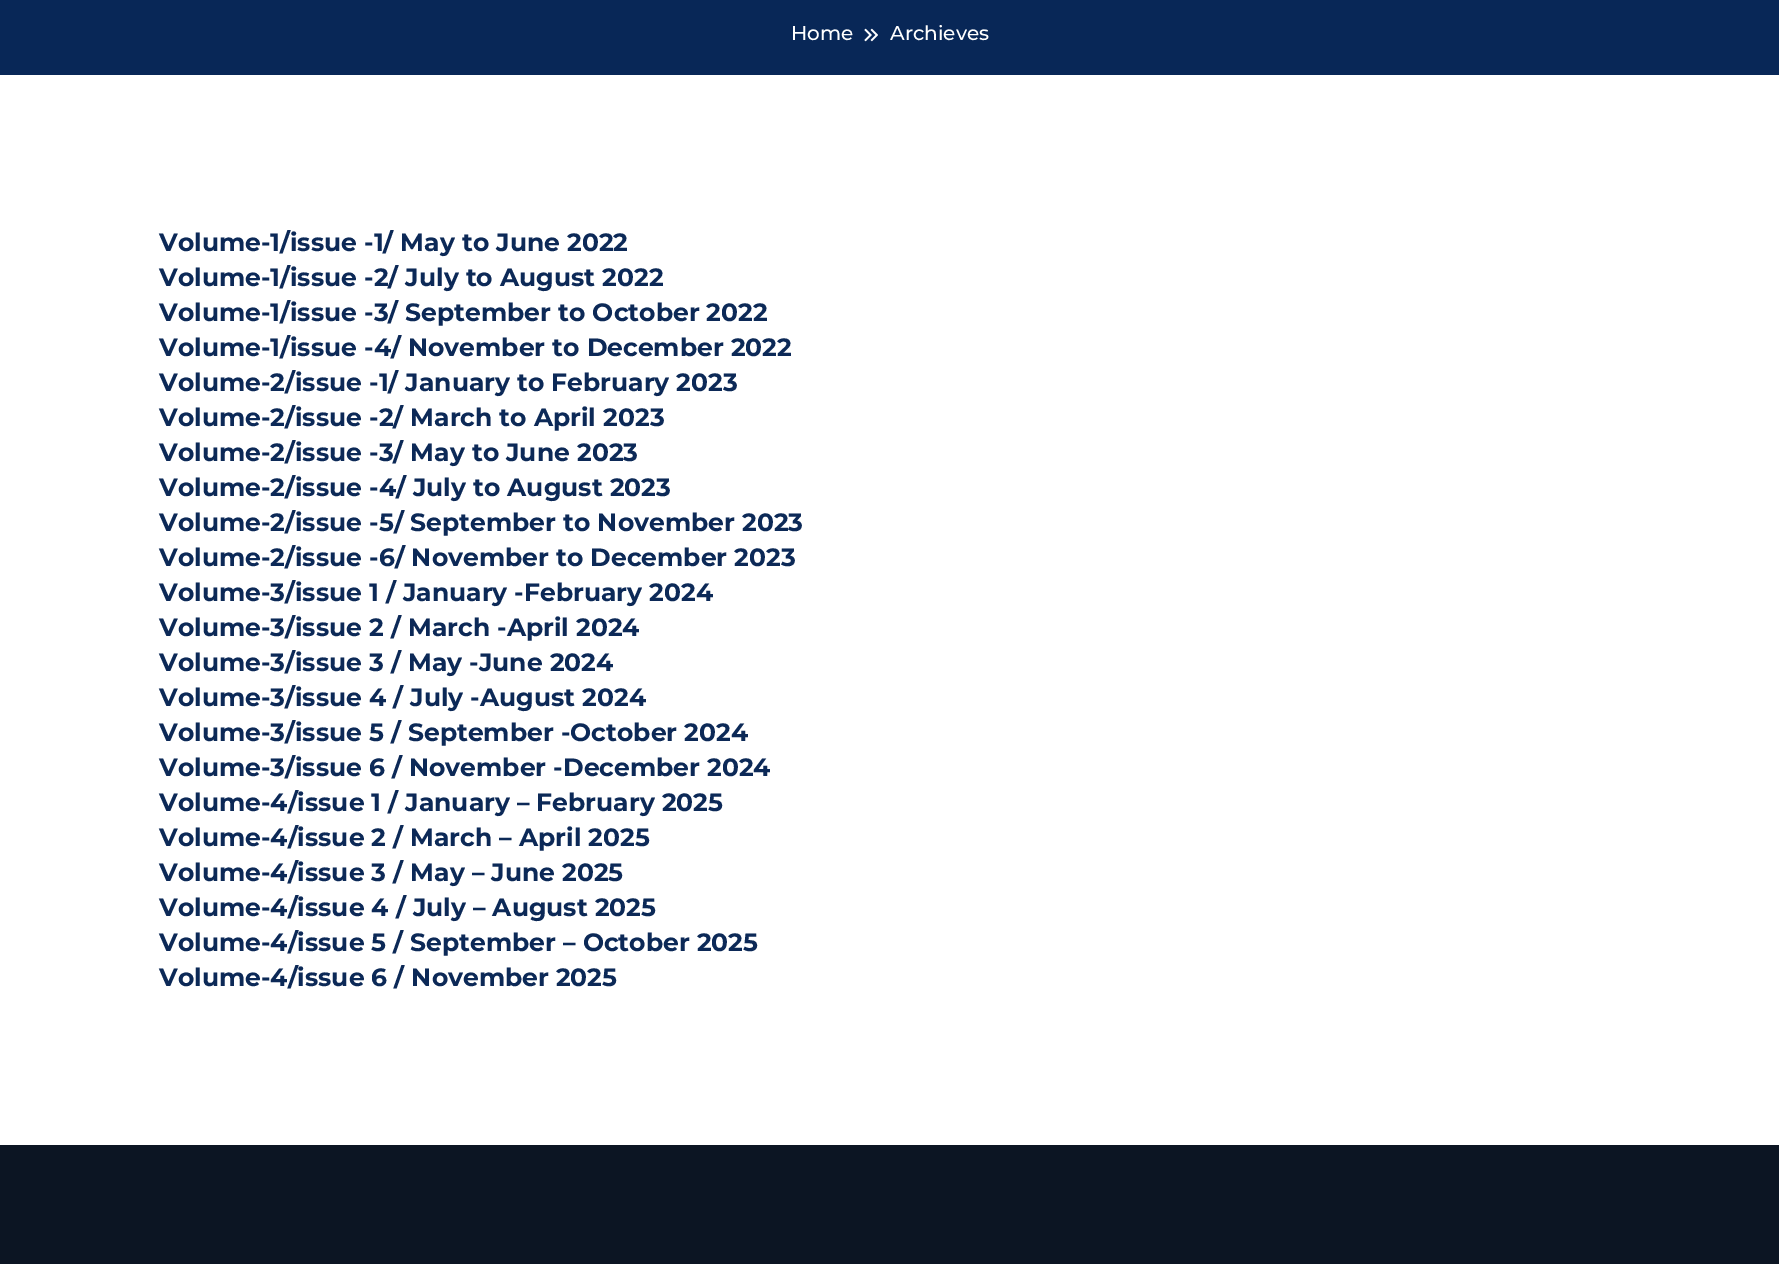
%!PS-Adobe-3.0
%%BoundingBox: 0 0 1779 1264
%%LanguageLevel: 3
%%Pages: 1
%%EndComments
%%BeginProlog
/setink { dup -16 bitshift 255 div exch dup -8 bitshift 255 and 255 div exch 255 and 255 div setrgbcolor } def
/usefont { [ exch dup neg 0 0 3 -1 roll 0 0 ] selectfont } def
/drawimage { 5 dict begin { /h /w /y /x /name } { exch def } forall
  gsave x y translate w h scale
  w h 8 [w 0 0 h 0 0] name (r) file false 3 colorimage grestore end } def
%%EndProlog
%%BeginSetup
<< /PageSize [1779 1264] >> setpagedevice
%%EndSetup
%%Page: 1 1
0 1264 translate 1 -1 scale
4 setmiterlimit
16#FFFFFF setink
0 0 1779 1264 rectfill
16#082757 setink
0 0 1779 75 rectfill
/Montserrat-Medium 20 usefont
16#FFFFFF setink
791 40 moveto (Home) show
(img1.raw) 864 28 14 14 drawimage
890 40 moveto (Archieves) show
/Montserrat-Bold 25 usefont
16#0C2957 setink
[
    [(Volume-1/issue -1/ May to June 2022) 159 251]
    [(Volume-1/issue -2/ July to August 2022) 159 286]
    [(Volume-1/issue -3/ September to October 2022) 159 321]
    [(Volume-1/issue -4/ November to December 2022) 159 356]
    [(Volume-2/issue -1/ January to February 2023) 159 391]
    [(Volume-2/issue -2/ March to April 2023) 159 426]
    [(Volume-2/issue -3/ May to June 2023) 159 461]
    [(Volume-2/issue -4/ July to August 2023) 159 496]
    [(Volume-2/issue -5/ September to November 2023) 159 531]
    [(Volume-2/issue -6/ November to December 2023) 159 566]
    [(Volume-3/issue 1 / January -February 2024) 159 601]
    [(Volume-3/issue 2 / March -April 2024) 159 636]
    [(Volume-3/issue 3 / May -June 2024) 159 671]
    [(Volume-3/issue 4 / July -August 2024) 159 706]
    [(Volume-3/issue 5 / September -October 2024) 159 741]
    [(Volume-3/issue 6 / November -December 2024) 159 776]
    [(Volume-4/issue 1 / January – February 2025) 159 811]
    [(Volume-4/issue 2 / March – April 2025) 159 846]
    [(Volume-4/issue 3 / May – June 2025) 159 881]
    [(Volume-4/issue 4 / July – August 2025) 159 916]
    [(Volume-4/issue 5 / September – October 2025) 159 951]
    [(Volume-4/issue 6 / November 2025) 159 986]
] { aload pop moveto show } forall
16#0C1523 setink
0 1145 1779 119 rectfill
showpage
%%EOF
